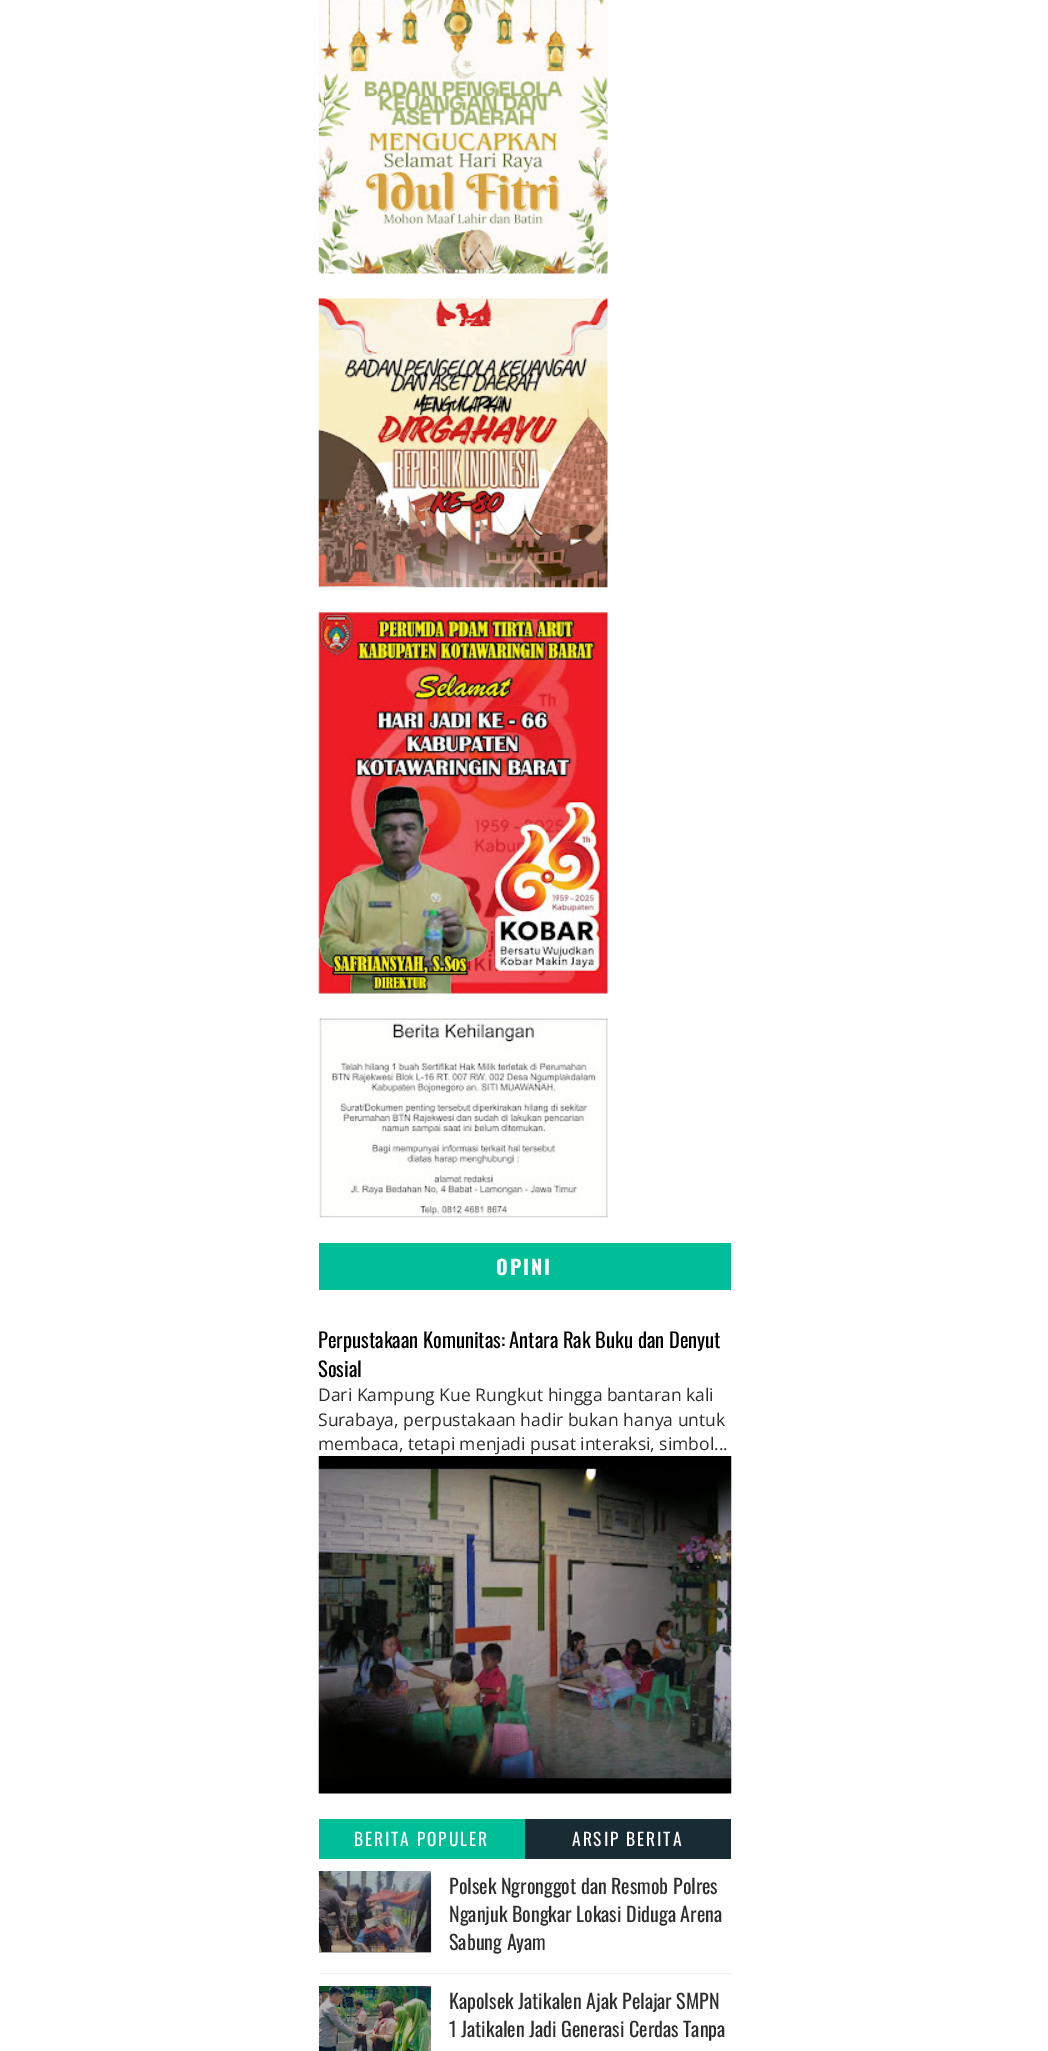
%!PS-Adobe-3.0
%%BoundingBox: 0 0 1048 2051
%%LanguageLevel: 3
%%Pages: 1
%%EndComments
%%BeginProlog
/setink { dup -16 bitshift 255 div exch dup -8 bitshift 255 and 255 div exch 255 and 255 div setrgbcolor } def
/usefont { [ exch dup neg 0 0 3 -1 roll 0 0 ] selectfont } def
/setalpha { dup .setfillconstantalpha .setstrokeconstantalpha } def
/drawimage { 5 dict begin { /h /w /y /x /name } { exch def } forall
  gsave x y translate w h scale
  w h 8 [w 0 0 h 0 0] name (r) file false 3 colorimage grestore end } def
%%EndProlog
%%BeginSetup
<< /PageSize [1048 2051] /PageUsesTransparency true >> setpagedevice
%%EndSetup
%%Page: 1 1
0 .pushpdf14devicefilter
0 2051 translate 1 -1 scale
4 setmiterlimit
16#FFFFFF setink
0 0 1048 2051 rectfill
(img1.raw) 318 0 290 274 drawimage
(img2.raw) 318 298 290 290 drawimage
(img3.raw) 318 612 290 382 drawimage
(img4.raw) 318 1018 290 200 drawimage
16#00BE98 setink
319 1243 412 47 rectfill
/Oswald-Bold 20 usefont
16#FFFFFF setink
496 1275 moveto 1.9 0 (OPINI) ashow
/Oswald-Regular 20.5 usefont
16#000000 setink
318 1348 moveto (Perpustakaan Komunitas: Antara Rak Buku dan Denyut) show
318 1377 moveto (Sosial) show
/OpenSans-Regular 17.5 usefont
16#2E2E2E setink
[
    [(Dari Kampung Kue Rungkut hingga bantaran kali) 318 1401]
    [(Surabaya, perpustakaan hadir bukan hanya untuk) 318 1426]
    [(membaca, tetapi menjadi pusat interaksi, simbol...) 318 1450]
] { aload pop moveto show } forall
(img5.raw) 318 1456 414 338 drawimage
16#00BE98 setink
319 1819 206 40 rectfill
/Oswald-Regular 17.5 usefont
16#FFFFFF setink
354 1846 moveto 1.9 0 (BERITA POPULER) ashow
16#192B33 setink
525 1819 206 40 rectfill
16#FFFFFF setink
572 1846 moveto 1.9 0 (ARSIP BERITA) ashow
(img6.raw) 318 1871 114 82 drawimage
0.3 setalpha
16#000000 setink
319 1871 112 82 rectfill
/Oswald-Regular 20 usefont
1 setalpha
16#2E2E2E setink
[
    [(Polsek Ngronggot dan Resmob Polres) 449 1894]
    [(Nganjuk Bongkar Lokasi Diduga Arena) 449 1922]
    [(Sabung Ayam) 449 1950]
] { aload pop moveto show } forall
16#F2F2F2 setink
319 1973 412 1 rectfill
(img7.raw) 318 1986 114 65 drawimage
16#2E2E2E setink
449 2009 moveto (Kapolsek Jatikalen Ajak Pelajar SMPN) show
449 2037 moveto (1 Jatikalen Jadi Generasi Cerdas Tanpa) show
.poppdf14devicefilter showpage
%%EOF
